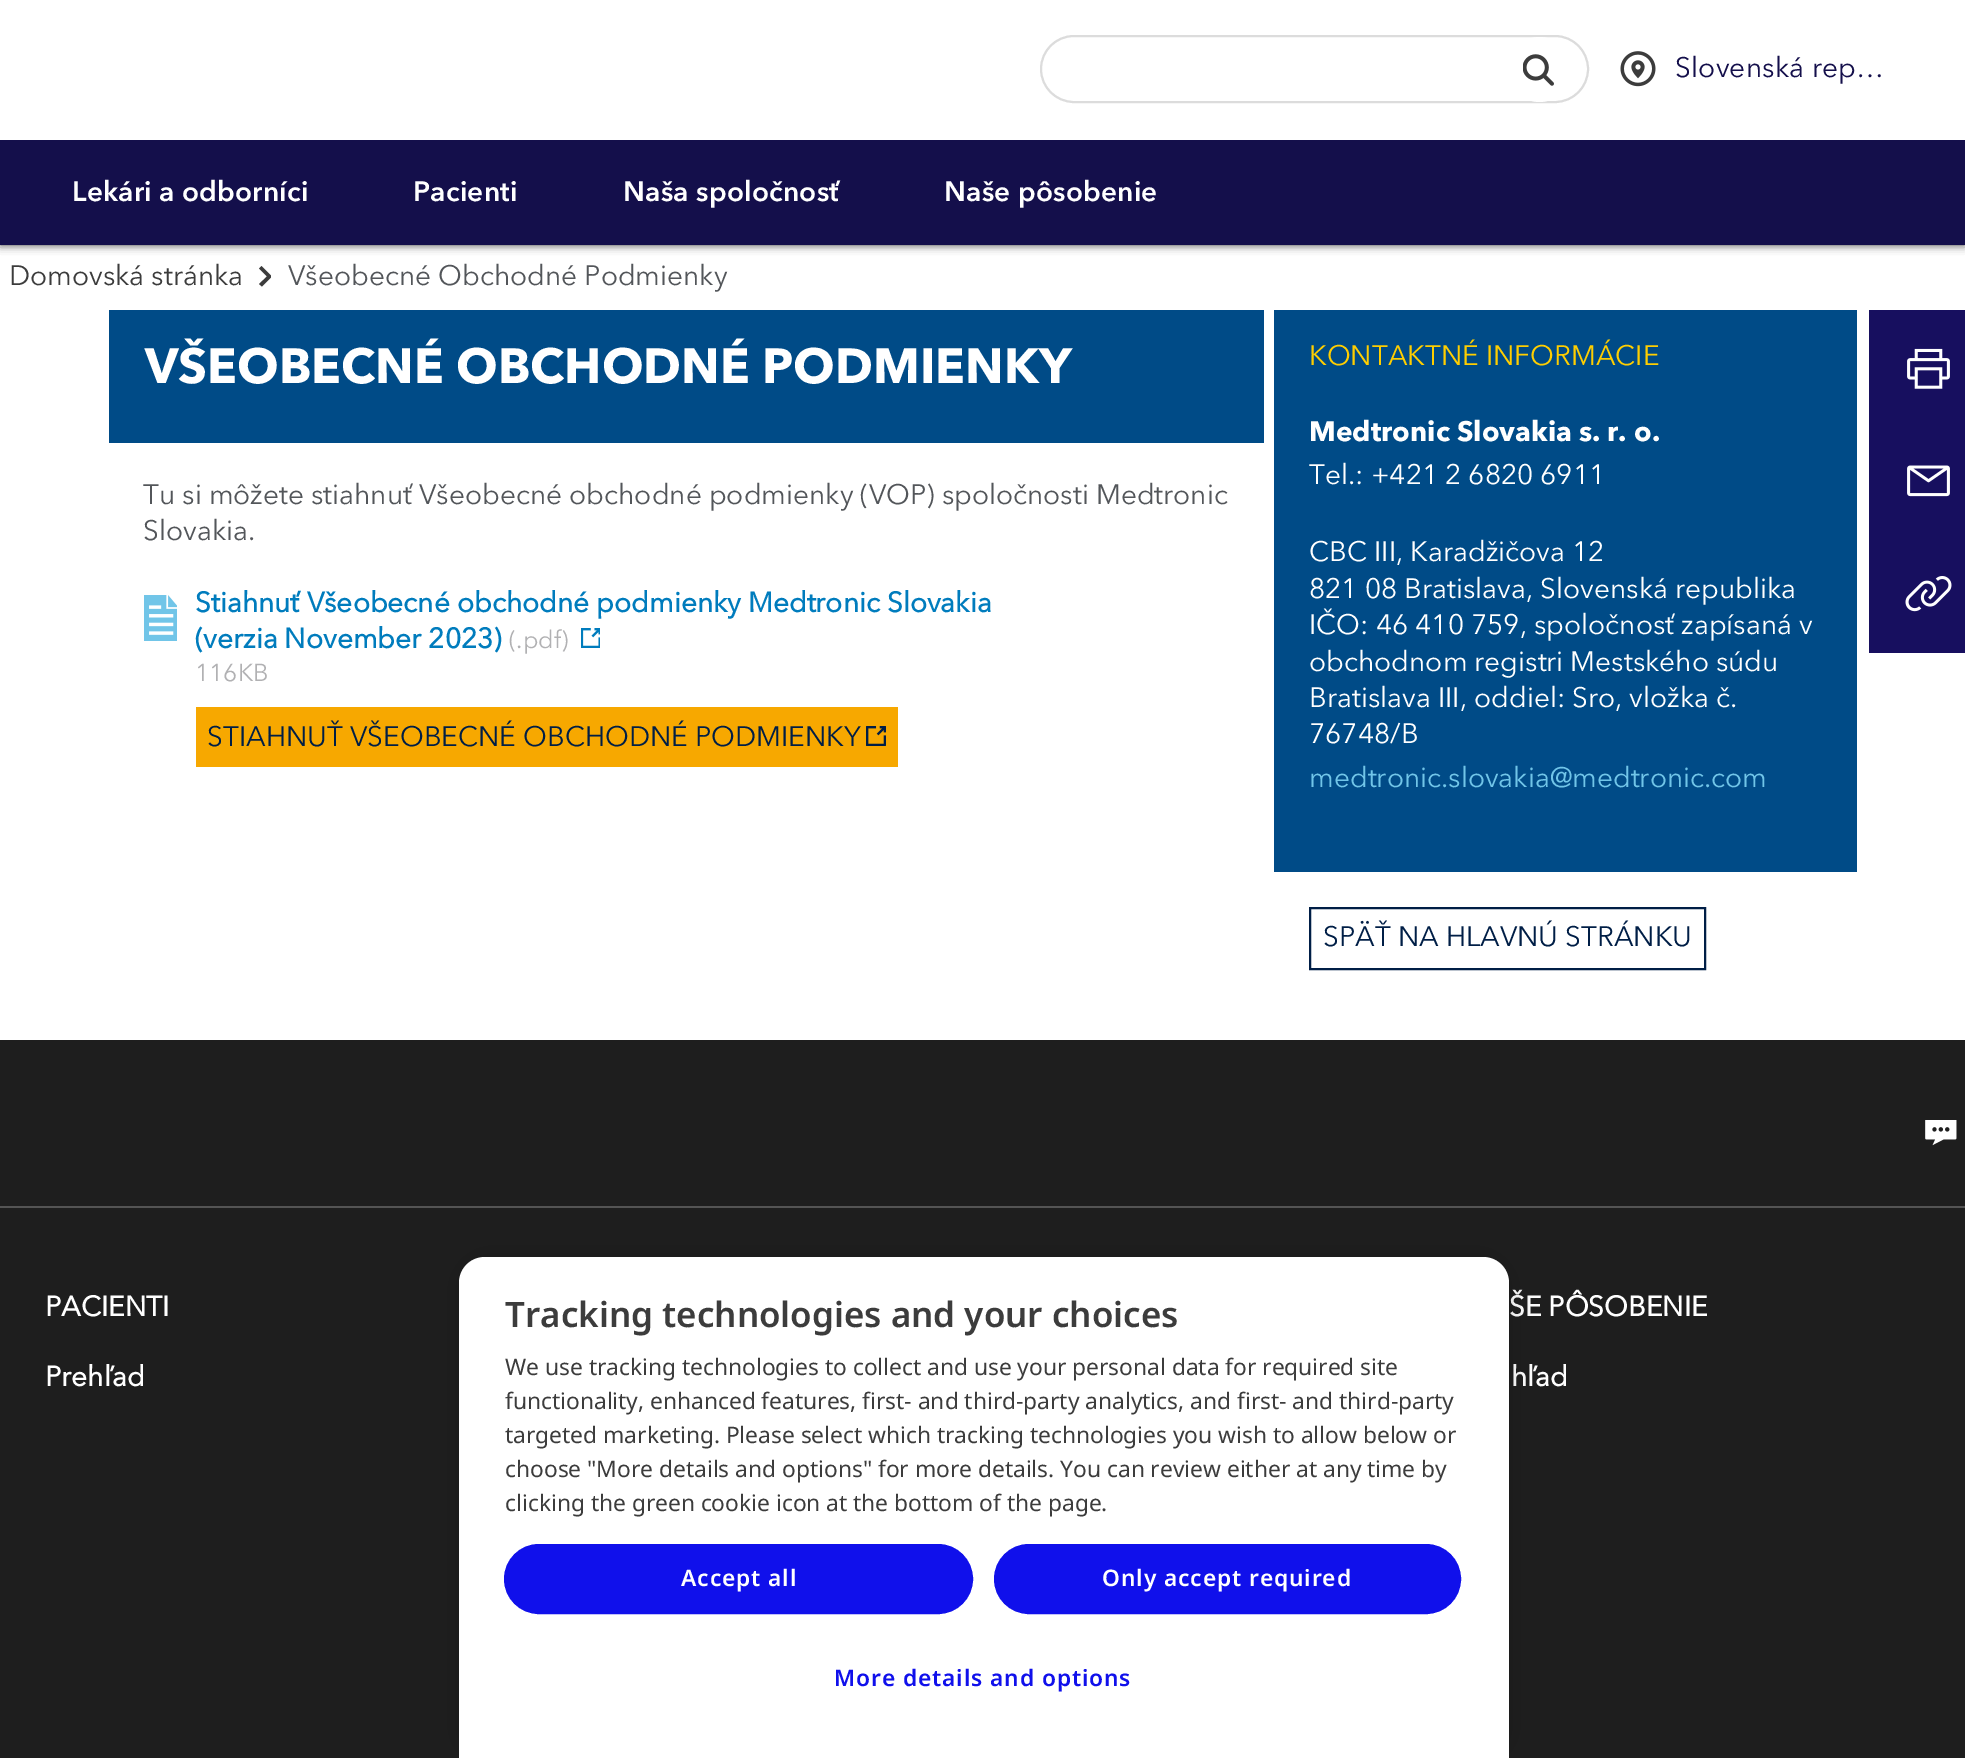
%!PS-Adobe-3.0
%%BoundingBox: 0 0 1965 1758
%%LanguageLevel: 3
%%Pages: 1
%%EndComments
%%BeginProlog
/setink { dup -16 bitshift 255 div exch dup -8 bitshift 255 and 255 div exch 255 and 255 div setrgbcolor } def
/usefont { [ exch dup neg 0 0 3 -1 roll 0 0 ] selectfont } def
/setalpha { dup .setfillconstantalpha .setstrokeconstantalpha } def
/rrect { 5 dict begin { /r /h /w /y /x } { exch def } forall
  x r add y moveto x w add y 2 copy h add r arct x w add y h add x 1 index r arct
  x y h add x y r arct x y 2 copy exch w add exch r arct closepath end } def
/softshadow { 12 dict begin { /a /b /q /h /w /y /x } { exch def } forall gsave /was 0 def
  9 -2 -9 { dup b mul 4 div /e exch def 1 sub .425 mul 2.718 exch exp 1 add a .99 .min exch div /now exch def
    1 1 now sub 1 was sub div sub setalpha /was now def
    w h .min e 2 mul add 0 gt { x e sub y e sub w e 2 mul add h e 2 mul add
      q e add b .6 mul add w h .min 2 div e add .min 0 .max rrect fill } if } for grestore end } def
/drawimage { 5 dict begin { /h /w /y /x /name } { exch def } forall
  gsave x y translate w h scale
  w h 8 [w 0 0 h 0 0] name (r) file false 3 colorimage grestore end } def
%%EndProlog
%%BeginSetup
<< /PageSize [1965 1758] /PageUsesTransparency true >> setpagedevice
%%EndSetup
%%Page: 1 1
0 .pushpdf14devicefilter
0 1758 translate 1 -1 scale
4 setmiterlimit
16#FFFFFF setink
0 0 1965 1758 rectfill
16#3C3C3C setink
0 0 1965 245 0 4.5 1 softshadow
16#140F4B setink
0 140 1965 105 rectfill
16#FFFFFF setink
0 0 1965 140 rectfill
16#DCDCDC setink
2 setlinewidth
1041 36 547 66 33 rrect stroke
16#FFFFFF setink
1509 37 61 65 30.5 rrect fill
(img1.raw) 1523 54 31 32 drawimage
(img2.raw) 1620 51 36 36 drawimage
/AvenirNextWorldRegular-Regular 28 usefont
16#140F4B setink
1675 77 moveto 0.2 0 (Slovenská rep…) ashow
/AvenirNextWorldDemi-SemiBold 28 usefont
16#FFFFFF setink
72 201 moveto 0.2 0 (Lekári a odborníci) ashow
413 201 moveto 0.2 0 (Pacienti) ashow
623 201 moveto 0.2 0 (Naša spoločnosť) ashow
944 201 moveto 0.2 0 (Naše pôsobenie) ashow
/AvenirNextWorldRegular-Regular 28 usefont
16#3C3C3C setink
9 285 moveto (Domovská stránka) show
gsave
259 266 12 21 rectclip
261.5 266 moveto 259 268.5 lineto 267 276.5 lineto 259 284 lineto 262 286.5 lineto 272 276.5 lineto closepath fill
grestore
16#53565A setink
288 285 moveto (Všeobecné Obchodné Podmienky) show
16#004B87 setink
109 310 1155 133 rectfill
/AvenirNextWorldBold-Bold 49 usefont
16#FFFFFF setink
145 383 moveto (VŠEOBECNÉ OBCHODNÉ PODMIENKY) show
/AvenirNextWorldRegular-Regular 28 usefont
16#53565A setink
143 504 moveto (Tu si môžete stiahnuť Všeobecné obchodné podmienky \(VOP\) spoločnosti Medtronic) show
143 540 moveto (Slovakia.) show
(img3.raw) 144 595 33 46 drawimage
/AvenirNextWorldRegular-Bold 28 usefont
16#007CBD setink
195 612 moveto (Stiahnuť Všeobecné obchodné podmienky Medtronic Slovakia) show
195 648 moveto (\(verzia November 2023\)) show
/AvenirNextWorldRegular-Regular 24.5 usefont
16#B1B1B3 setink
509 648 moveto (\(.pdf\)) show
(img4.raw) 581 628 19 20 drawimage
195 681 moveto (116KB) show
16#F7A800 setink
196 707 702 60 rectfill
/AvenirNextWorldRegular-Regular 28 usefont
16#001E46 setink
207 746 moveto (STIAHNUŤ VŠEOBECNÉ OBCHODNÉ PODMIENKY) show
(img5.raw) 866 726 20 20 drawimage
16#004B87 setink
1274 310 583 562 rectfill
16#FFCE00 setink
1309 365 moveto (KONTAKTNÉ INFORMÁCIE) show
/AvenirNextWorldBold-Bold 28 usefont
16#FFFFFF setink
1309 441 moveto (Medtronic Slovakia s. r. o.) show
/AvenirNextWorldRegular-Regular 28 usefont
[
    [(Tel.: +421 2 6820 6911) 1309 484]
    [(CBC III, Karadžičova 12) 1309 561]
    [(821 08 Bratislava, Slovenská republika) 1309 598]
    [(IČO: 46 410 759, spoločnosť zapísaná v) 1309 634]
    [(obchodnom registri Mestského súdu) 1309 671]
    [(Bratislava III, oddiel: Sro, vložka č.) 1309 707]
    [(76748/B) 1309 743]
] { aload pop moveto show } forall
16#71C5E8 setink
1309 787 moveto (medtronic.slovakia@medtronic.com) show
16#001E46 setink
1310 908 395 61 rectstroke
1323 946 moveto (SPÄŤ NA HLAVNÚ STRÁNKU) show
16#170F5F setink
1869 310 96 343 rectfill
(img6.raw) 1907 348 43 41 drawimage
(img7.raw) 1907 465 43 32 drawimage
(img8.raw) 1905 576 47 36 drawimage
16#1E1E1E setink
0 1040 1965 718 rectfill
16#545454 setink
0 1206 1965 2 rectfill
(img9.raw) 1925 1120 32 26 drawimage
/AvenirNextWorldRegular-Bold 28 usefont
16#FFFFFF setink
[
    [(PACIENTI) 45 1316]
    [(Prehľad) 45 1386]
    [(ŠE PÔSOBENIE) 1509 1316]
    [(hľad) 1511 1386]
] { aload pop moveto show } forall
16#000000 setink
459 1257 1050 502 26 16 0.2 softshadow
16#FFFFFF setink
485 1257 moveto 1483 1257 lineto 1497.5 1257 1509 1268.5 1509 1283 curveto 1509 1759 lineto 459 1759 lineto 459 1283 lineto 459 1268.5 470.5 1257 485 1257 curveto closepath fill
/NotoSans-SemiBold 35 usefont
16#3C3C3C setink
505 1327 moveto (Tracking technologies and your choices) show
/NotoSans-Regular 22.75 usefont
[
    [(We use tracking technologies to collect and use your personal data for required site) 505 1375]
    [(functionality, enhanced features, first- and third-party analytics, and first- and third-party) 505 1409]
    [(targeted marketing. Please select which tracking technologies you wish to allow below or) 505 1443]
    [(choose "More details and options" for more details. You can review either at any time by) 505 1477]
    [(clicking the green cookie icon at the bottom of the page.) 505 1511]
] { aload pop moveto show } forall
16#1010EB setink
505 1545 467 68 34 rrect gsave fill grestore
stroke
/NotoSans-SemiBold 22.75 usefont
16#FFFFFF setink
681 1586 moveto 0.9 0 (Accept all) ashow
16#1010EB setink
995 1545 465 68 34 rrect gsave fill grestore
stroke
16#FFFFFF setink
1102 1586 moveto 0.9 0 (Only accept required) ashow
16#1010EB setink
834 1686 moveto 0.9 0 (More details and options) ashow
.poppdf14devicefilter showpage
%%EOF
